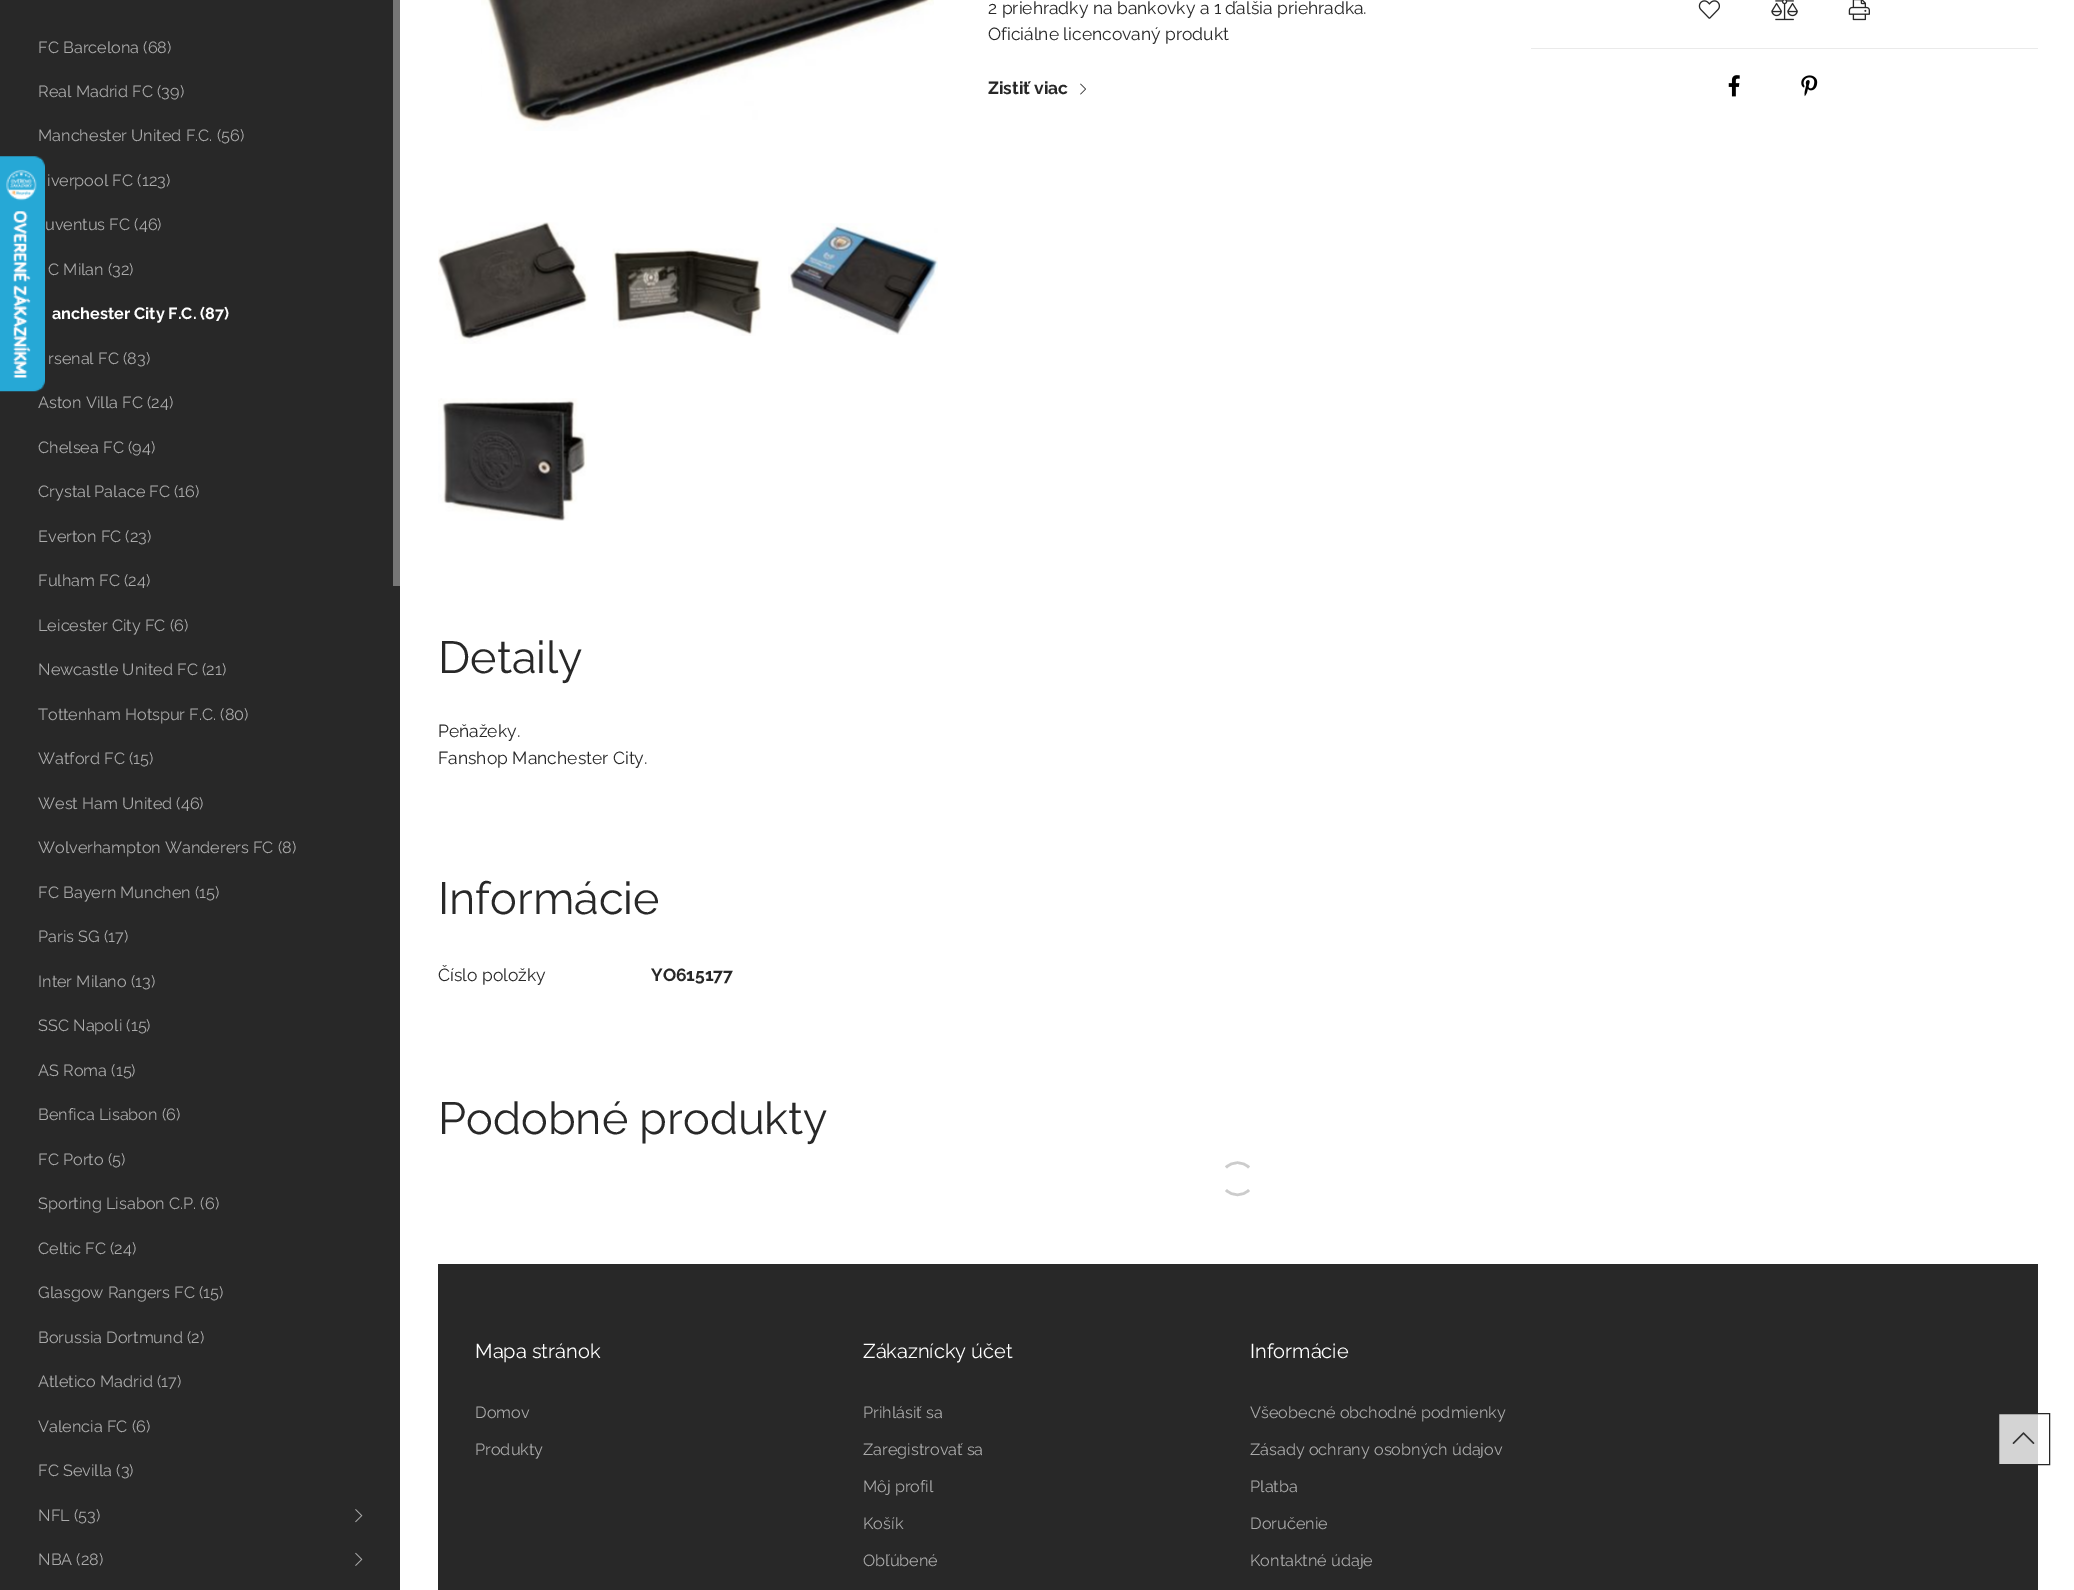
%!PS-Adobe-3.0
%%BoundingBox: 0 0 2074 1590
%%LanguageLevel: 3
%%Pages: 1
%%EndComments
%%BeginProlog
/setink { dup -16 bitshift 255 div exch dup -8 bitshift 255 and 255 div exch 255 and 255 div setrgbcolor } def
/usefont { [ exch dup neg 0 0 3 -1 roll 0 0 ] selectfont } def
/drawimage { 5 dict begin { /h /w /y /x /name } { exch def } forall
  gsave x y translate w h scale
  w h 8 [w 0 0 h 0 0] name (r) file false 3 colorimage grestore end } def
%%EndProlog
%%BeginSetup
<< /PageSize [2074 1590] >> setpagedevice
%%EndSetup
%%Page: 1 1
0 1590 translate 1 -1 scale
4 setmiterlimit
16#FFFFFF setink
0 0 2074 1590 rectfill
16#282828 setink
0 0 400 1590 rectfill
(img1.raw) 0 156 45 236 drawimage
/Raleway-Regular 16.25 usefont
16#AAAAAA setink
[
    [(FC Barcelona \(68\)) 38 53]
    [(Real Madrid FC \(39\)) 38 97]
    [(Manchester United F.C. \(56\)) 38 141]
    [(iverpool FC \(123\)) 47 186]
    [(uventus FC \(46\)) 45 230]
    [(C Milan \(32\)) 48 275]
] { aload pop moveto show } forall
/Raleway-Bold 16.25 usefont
16#FFFFFF setink
52 319 moveto (anchester City F.C. \(87\)) show
/Raleway-Regular 16.25 usefont
16#AAAAAA setink
[
    [(rsenal FC \(83\)) 48 364]
    [(Aston Villa FC \(24\)) 38 408]
    [(Chelsea FC \(94\)) 38 453]
    [(Crystal Palace FC \(16\)) 38 497]
    [(Everton FC \(23\)) 38 542]
    [(Fulham FC \(24\)) 38 586]
    [(Leicester City FC \(6\)) 38 631]
    [(Newcastle United FC \(21\)) 38 675]
    [(Tottenham Hotspur F.C. \(80\)) 38 720]
    [(Watford FC \(15\)) 38 764]
    [(West Ham United \(46\)) 38 809]
    [(Wolverhampton Wanderers FC \(8\)) 38 853]
    [(FC Bayern Munchen \(15\)) 38 898]
    [(Paris SG \(17\)) 38 942]
    [(Inter Milano \(13\)) 38 987]
    [(SSC Napoli \(15\)) 38 1031]
    [(AS Roma \(15\)) 38 1076]
    [(Benfica Lisabon \(6\)) 38 1120]
    [(FC Porto \(5\)) 38 1165]
    [(Sporting Lisabon C.P. \(6\)) 38 1209]
    [(Celtic FC \(24\)) 38 1254]
    [(Glasgow Rangers FC \(15\)) 38 1298]
    [(Borussia Dortmund \(2\)) 38 1343]
    [(Atletico Madrid \(17\)) 38 1387]
    [(Valencia FC \(6\)) 38 1432]
    [(FC Sevilla \(3\)) 38 1476]
    [(NFL \(53\)) 38 1521]
] { aload pop moveto show } forall
(img2.raw) 355 1509 8 14 drawimage
38 1565 moveto (NBA \(28\)) show
(img3.raw) 355 1552 8 14 drawimage
16#767676 setink
393 0 7 586 rectfill
(img4.raw) 481 0 453 131 drawimage
(img5.raw) 438 222 150 122 drawimage
(img6.raw) 612 248 150 88 drawimage
(img7.raw) 788 223 150 112 drawimage
(img8.raw) 438 398 149 123 drawimage
/Raleway-Regular 17.5 usefont
16#282828 setink
988 14 moveto (2 priehradky na bankovky a 1 ďalšia priehradka.) show
988 40 moveto (Oficiálne licencovaný produkt) show
/Raleway-Bold 17.5 usefont
988 94 moveto (Zistiť viac) show
(img9.raw) 1080 83 6 12 drawimage
(img10.raw) 1698 0 22 19 drawimage
(img11.raw) 1771 0 27 21 drawimage
(img12.raw) 1848 0 22 21 drawimage
16#EAEAEA setink
1531 48 507 1 rectfill
(img13.raw) 1728 75 12 22 drawimage
(img14.raw) 1801 75 17 22 drawimage
/Raleway-Regular 45 usefont
16#282828 setink
438 673 moveto (Detaily) show
/Raleway-Regular 17.5 usefont
438 737 moveto (Peňažeky.) show
438 764 moveto (Fanshop Manchester City.) show
/Raleway-Regular 45 usefont
438 914 moveto (Informácie) show
/Raleway-Regular 17.5 usefont
438 981 moveto (Číslo položky) show
/Raleway-Bold 17.5 usefont
651 981 moveto (YO615177) show
/Raleway-Regular 45 usefont
438 1134 moveto (Podobné produkty) show
16#CCCCCC setink
2.5 setlinewidth
1226 1167.5 moveto 1232.5 1161 1242.5 1161 1249 1167.5 curveto 1249 1190 moveto 1242.5 1196.5 1232.5 1196.5 1226 1190 curveto stroke
16#282828 setink
438 1264 1600 326 rectfill
16#D4D4D4 setink
1999 1414 39 50 rectfill
/Raleway-Regular 20 usefont
16#FFFFFF setink
475 1358 moveto (Mapa stránok) show
/Raleway-Regular 16.25 usefont
16#AAAAAA setink
475 1418 moveto (Domov) show
475 1455 moveto (Produkty) show
/Raleway-Regular 20 usefont
16#FFFFFF setink
863 1358 moveto (Zákaznícky účet) show
/Raleway-Regular 16.25 usefont
16#AAAAAA setink
[
    [(Prihlásiť sa) 863 1418]
    [(Zaregistrovať sa) 863 1455]
    [(Môj profil) 863 1492]
    [(Košík) 863 1529]
    [(Obľúbené) 863 1566]
] { aload pop moveto show } forall
/Raleway-Regular 20 usefont
16#FFFFFF setink
1250 1358 moveto (Informácie) show
/Raleway-Regular 16.25 usefont
16#AAAAAA setink
[
    [(Všeobecné obchodné podmienky) 1250 1418]
    [(Zásady ochrany osobných údajov) 1250 1455]
    [(Platba) 1250 1492]
    [(Doručenie) 1250 1529]
    [(Kontaktné údaje) 1250 1566]
] { aload pop moveto show } forall
16#282828 setink
1 setlinewidth
1998.5 1413.5 51 51 rectstroke
(img15.raw) 2012 1432 23 12 drawimage
showpage
%%EOF
